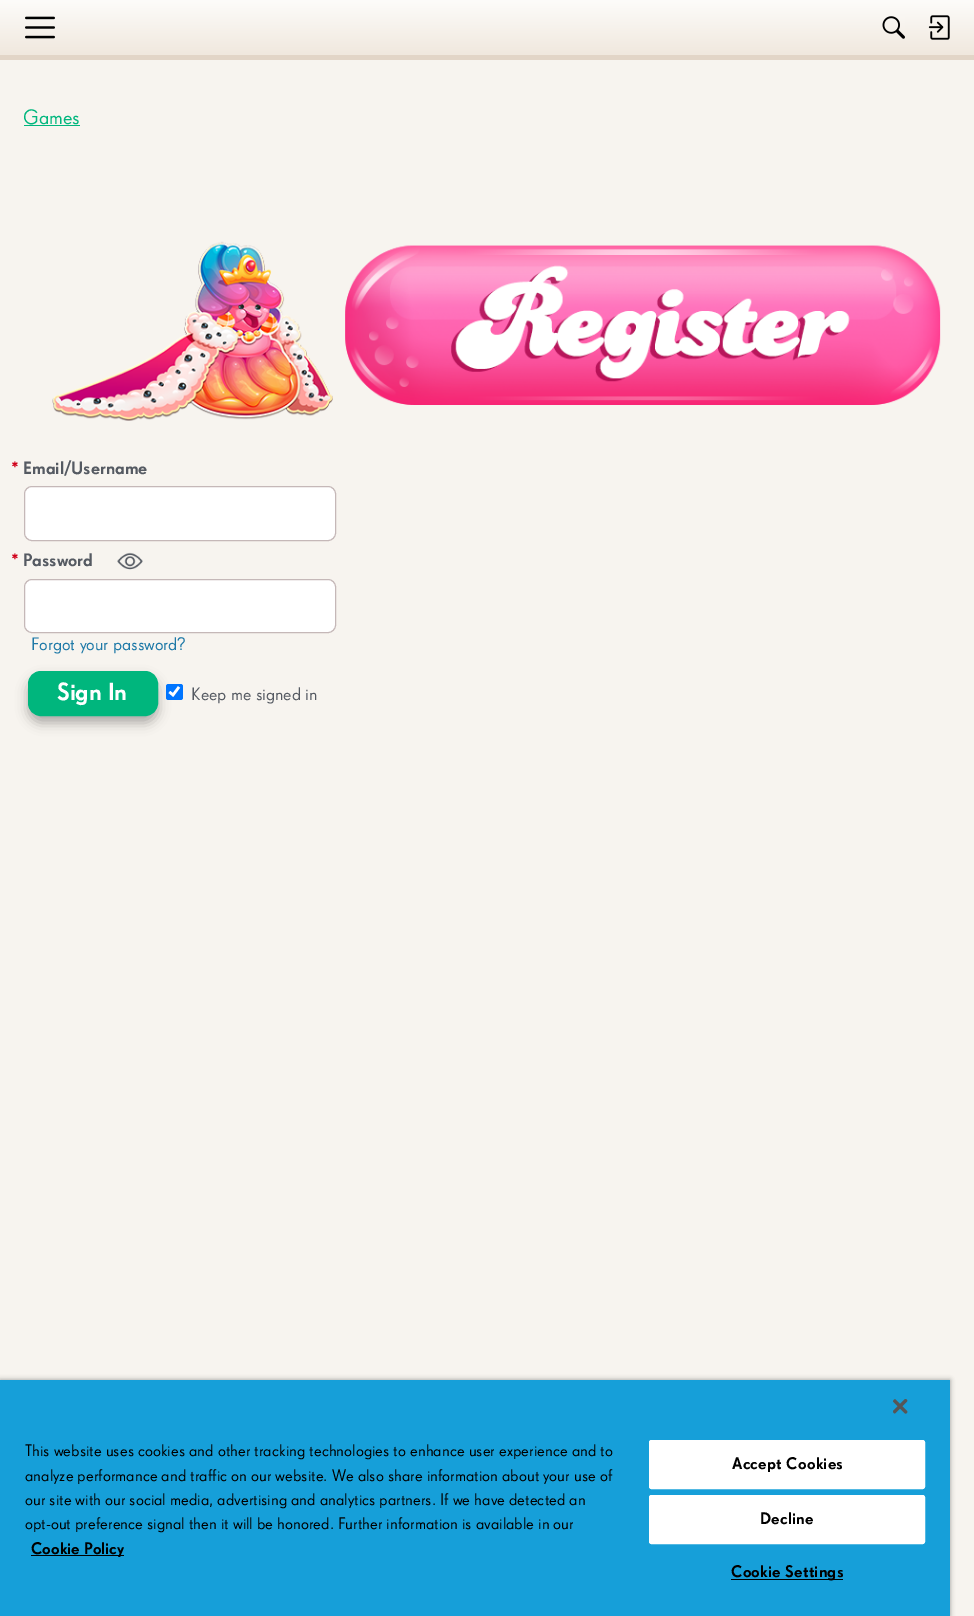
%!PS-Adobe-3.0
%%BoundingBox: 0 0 974 1616
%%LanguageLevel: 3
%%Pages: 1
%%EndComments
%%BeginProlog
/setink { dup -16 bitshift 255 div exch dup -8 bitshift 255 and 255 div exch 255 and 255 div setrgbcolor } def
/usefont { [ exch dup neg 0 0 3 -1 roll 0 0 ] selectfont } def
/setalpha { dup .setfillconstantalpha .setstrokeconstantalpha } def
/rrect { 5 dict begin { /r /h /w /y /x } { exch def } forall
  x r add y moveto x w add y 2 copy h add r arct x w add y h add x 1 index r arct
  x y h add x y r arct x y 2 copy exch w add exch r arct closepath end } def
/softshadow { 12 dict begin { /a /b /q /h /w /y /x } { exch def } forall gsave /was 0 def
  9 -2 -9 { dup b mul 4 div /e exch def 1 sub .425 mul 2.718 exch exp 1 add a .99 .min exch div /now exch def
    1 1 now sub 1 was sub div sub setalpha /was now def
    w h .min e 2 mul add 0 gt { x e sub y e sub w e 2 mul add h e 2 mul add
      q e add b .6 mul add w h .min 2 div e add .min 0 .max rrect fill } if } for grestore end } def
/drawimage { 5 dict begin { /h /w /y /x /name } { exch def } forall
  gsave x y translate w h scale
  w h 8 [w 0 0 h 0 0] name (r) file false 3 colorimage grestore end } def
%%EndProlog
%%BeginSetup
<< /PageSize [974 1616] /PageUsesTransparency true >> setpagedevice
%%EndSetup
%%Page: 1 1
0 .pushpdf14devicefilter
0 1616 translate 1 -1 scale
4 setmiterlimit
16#F7F4EF setink
0 0 974 1616 rectfill
16#E2D5C7 setink
0 55 974 5 rectfill
gsave 0 0 moveto 974 0 lineto 974 55 lineto 0 55 lineto closepath clip newpath
<< /ShadingType 2 /ColorSpace /DeviceRGB /Coords [488 0 488 55] /Extend [true true] /Function << /FunctionType 2 /Domain [0 1] /C0 [0.992 0.988 0.98] /C1 [0.941 0.91 0.871] /N 1 >> >> shfill grestore
(img1.raw) 25 16 30 23 drawimage
(img2.raw) 882 16 23 23 drawimage
(img3.raw) 928 15 22 25 drawimage
/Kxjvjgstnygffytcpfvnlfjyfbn-Regular 20 usefont
16#00B67D setink
23 124 moveto (Games) show
24 125 56 1 rectfill
(img4.raw) 52 241 889 180 drawimage
/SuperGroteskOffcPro-Medium 17.5 usefont
16#D0021B setink
11 474 moveto (*) show
16#555A62 setink
23 474 moveto (Email/Username) show
16#FFFFFF setink
24.5 486.5 311 54 7.5 rrect gsave fill grestore
16#C5B8B8 setink
stroke
16#D0021B setink
11 566 moveto (*) show
16#555A62 setink
23 566 moveto (Password) show
(img5.raw) 117 552 26 18 drawimage
16#FFFFFF setink
24.5 579.5 311 53 7.5 rrect gsave fill grestore
16#C5B8B8 setink
stroke
/Kxjvjgstnygffytcpfvnlfjyfbn-Regular 17.5 usefont
16#1E79A7 setink
31 650 moveto (Forgot your password?) show
16#000000 setink
28 678 130 45 13 6 0.3 softshadow
16#00B67D setink
28.5 671.5 129 44 12.5 rrect gsave fill grestore
stroke
/SuperGroteskOffcPro-Medium 24 usefont
16#FFFFFF setink
57 700 moveto (Sign In) show
16#0075FF setink
166 684 17 16 2.5 rrect fill
16#FFFFFF setink
2.6 setlinewidth
169.5 692 moveto 173 695 lineto 179 687 lineto stroke
/Kxjvjgstnygffytcpfvnlfjyfbn-Regular 17.5 usefont
16#555A62 setink
191 700 moveto (Keep me signed in) show
16#000000 setink
0 1380 950 236 0 2.5 0.35 softshadow
16#169FD9 setink
0 1380 950 236 rectfill
(img6.raw) 893 1399 15 15 drawimage
/Kxjvjgstnygffytcpfvnlfjyfbn-Regular 16.25 usefont
16#000000 setink
[
    [(This website uses cookies and other tracking technologies to enhance user experience and to) 25 1456]
    [(analyze performance and traffic on our website. We also share information about your use of) 25 1481]
    [(our site with our social media, advertising and analytics partners. If we have detected an) 25 1505]
    [(opt-out preference signal then it will be honored. Further information is available in our) 25 1529]
] { aload pop moveto show } forall
31 1555 93 1 rectfill
/SuperGroteskOffcPro-Medium 16.25 usefont
31 1554 moveto (Cookie Policy) show
16#FFFFFF setink
649.5 1440.5 275 48 2 rrect gsave fill grestore
1 setlinewidth
stroke
16#000000 setink
732 1469 moveto 0.2 0 (Accept Cookies) ashow
16#FFFFFF setink
649.5 1495.5 275 48 2 rrect gsave fill grestore
stroke
16#000000 setink
760 1524 moveto 0.2 0 (Decline) ashow
731 1579 112 1 rectfill
731 1577 moveto 0.2 0 (Cookie Settings) ashow
.poppdf14devicefilter showpage
%%EOF
